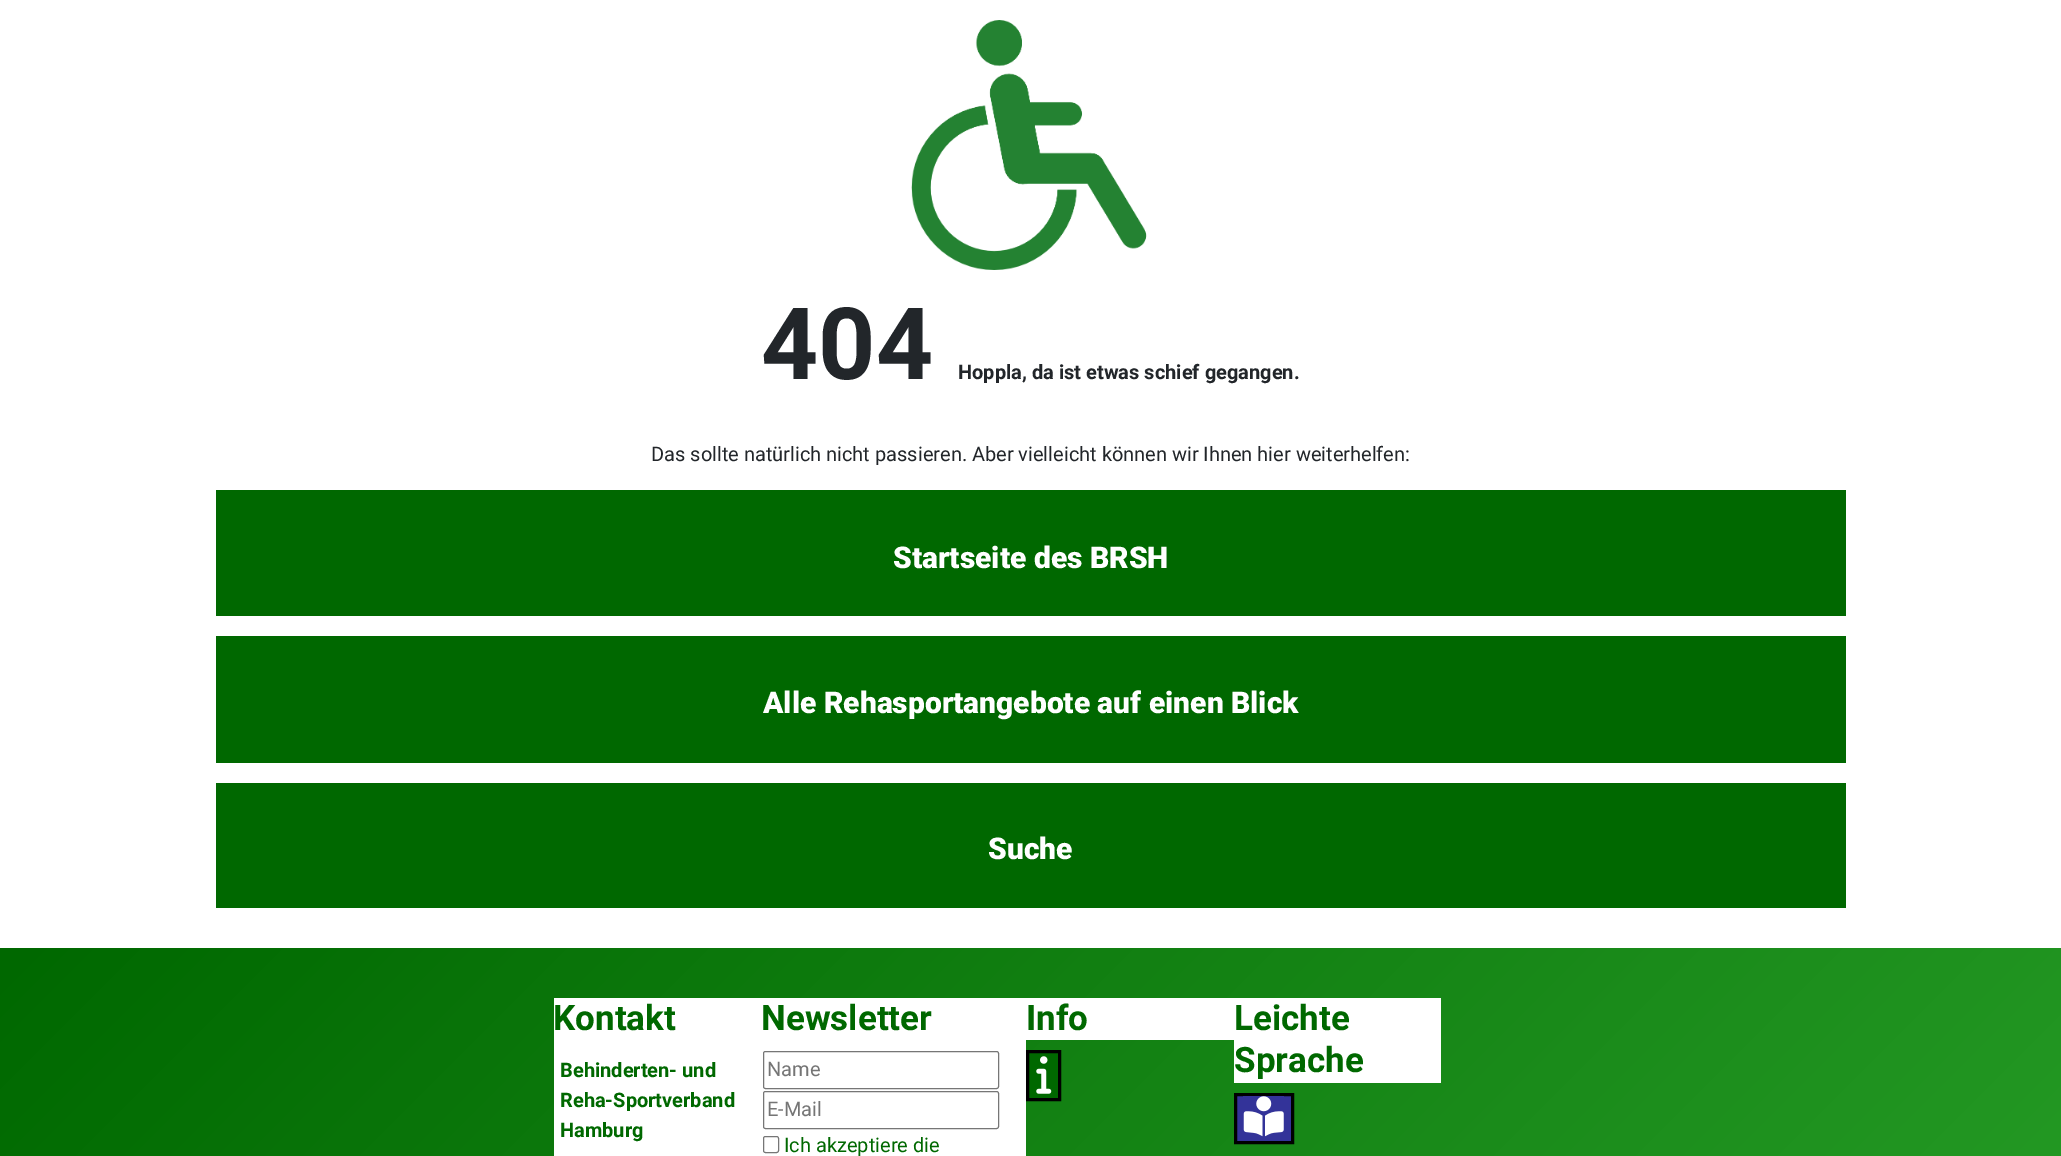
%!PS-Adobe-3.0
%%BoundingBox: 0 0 2061 1156
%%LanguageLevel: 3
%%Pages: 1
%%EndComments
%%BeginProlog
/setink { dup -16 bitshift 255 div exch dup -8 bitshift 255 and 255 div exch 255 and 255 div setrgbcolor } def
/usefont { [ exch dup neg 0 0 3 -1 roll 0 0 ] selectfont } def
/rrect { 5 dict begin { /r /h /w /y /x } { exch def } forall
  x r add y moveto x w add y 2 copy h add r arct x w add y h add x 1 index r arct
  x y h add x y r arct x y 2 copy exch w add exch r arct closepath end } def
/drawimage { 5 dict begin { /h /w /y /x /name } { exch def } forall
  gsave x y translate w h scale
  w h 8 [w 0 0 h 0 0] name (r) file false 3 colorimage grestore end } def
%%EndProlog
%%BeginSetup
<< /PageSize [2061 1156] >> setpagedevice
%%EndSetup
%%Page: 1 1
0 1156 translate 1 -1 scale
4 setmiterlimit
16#FFFFFF setink
0 0 2061 1156 rectfill
(img1.raw) 911 20 236 250 drawimage
/Roboto-Bold 100 usefont
16#22262A setink
761 379 moveto (404) show
/Roboto-Bold 20 usefont
958 379 moveto (Hoppla, da ist etwas schief gegangen.) show
/Roboto-Regular 20 usefont
651 461 moveto (Das sollte natürlich nicht passieren. Aber vielleicht können wir Ihnen hier weiterhelfen:) show
16#006800 setink
216 490 1630 126 rectfill
/Roboto-Black 30 usefont
16#FFFFFF setink
893 568 moveto (Startseite des BRSH) show
16#006800 setink
216 636 1630 127 rectfill
16#FFFFFF setink
763 713 moveto (Alle Rehasportangebote auf einen Blick) show
16#006800 setink
216 783 1630 125 rectfill
16#FFFFFF setink
988 859 moveto (Suche) show
gsave 0 948 moveto 2061 948 lineto 2061 1156 lineto 0 1156 lineto closepath clip newpath
<< /ShadingType 2 /ColorSpace /DeviceRGB /Coords [375 573 1687 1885] /Extend [true true] /Function << /FunctionType 2 /Domain [0 1] /C0 [0 0.408 0] /C1 [0.161 0.624 0.161] /N 1 >> >> shfill grestore
554 998 472 158 rectfill
/Roboto-Bold 35 usefont
16#006800 setink
553 1030 moveto (Kontakt) show
/Roboto-Bold 20 usefont
[
    [(Behinderten- und) 560 1077]
    [(Reha-Sportverband) 560 1107]
    [(Hamburg) 560 1137]
] { aload pop moveto show } forall
/Roboto-Bold 35 usefont
761 1030 moveto (Newsletter) show
16#767676 setink
763.5 1051.5 235 37 2 rrect stroke
/Roboto-Regular 20 usefont
16#757575 setink
767 1076 moveto (Name) show
16#767676 setink
763.5 1091.5 235 37 2 rrect stroke
16#757575 setink
767 1116 moveto (E-Mail) show
16#767676 setink
763.5 1136.5 15 16 2 rrect stroke
16#006800 setink
784 1152 moveto (Ich akzeptiere die) show
16#FFFFFF setink
1026 998 208 42 rectfill
/Roboto-Bold 35 usefont
16#006800 setink
1026 1030 moveto (Info) show
1027.5 1051.5 moveto 1059.5 1051.5 lineto 1059.5 1099.5 lineto 1027.5 1099.5 lineto closepath gsave fill grestore
16#000000 setink
3 setlinewidth
stroke
(img2.raw) 1036 1056 16 38 drawimage
16#FFFFFF setink
1234 998 207 85 rectfill
16#006800 setink
1234 1030 moveto (Leichte) show
1234 1072 moveto (Sprache) show
16#333399 setink
1235.5 1094.5 moveto 1292.5 1094.5 lineto 1292.5 1142.5 lineto 1235.5 1142.5 lineto closepath gsave fill grestore
16#000000 setink
stroke
(img3.raw) 1243 1096 41 41 drawimage
showpage
%%EOF
